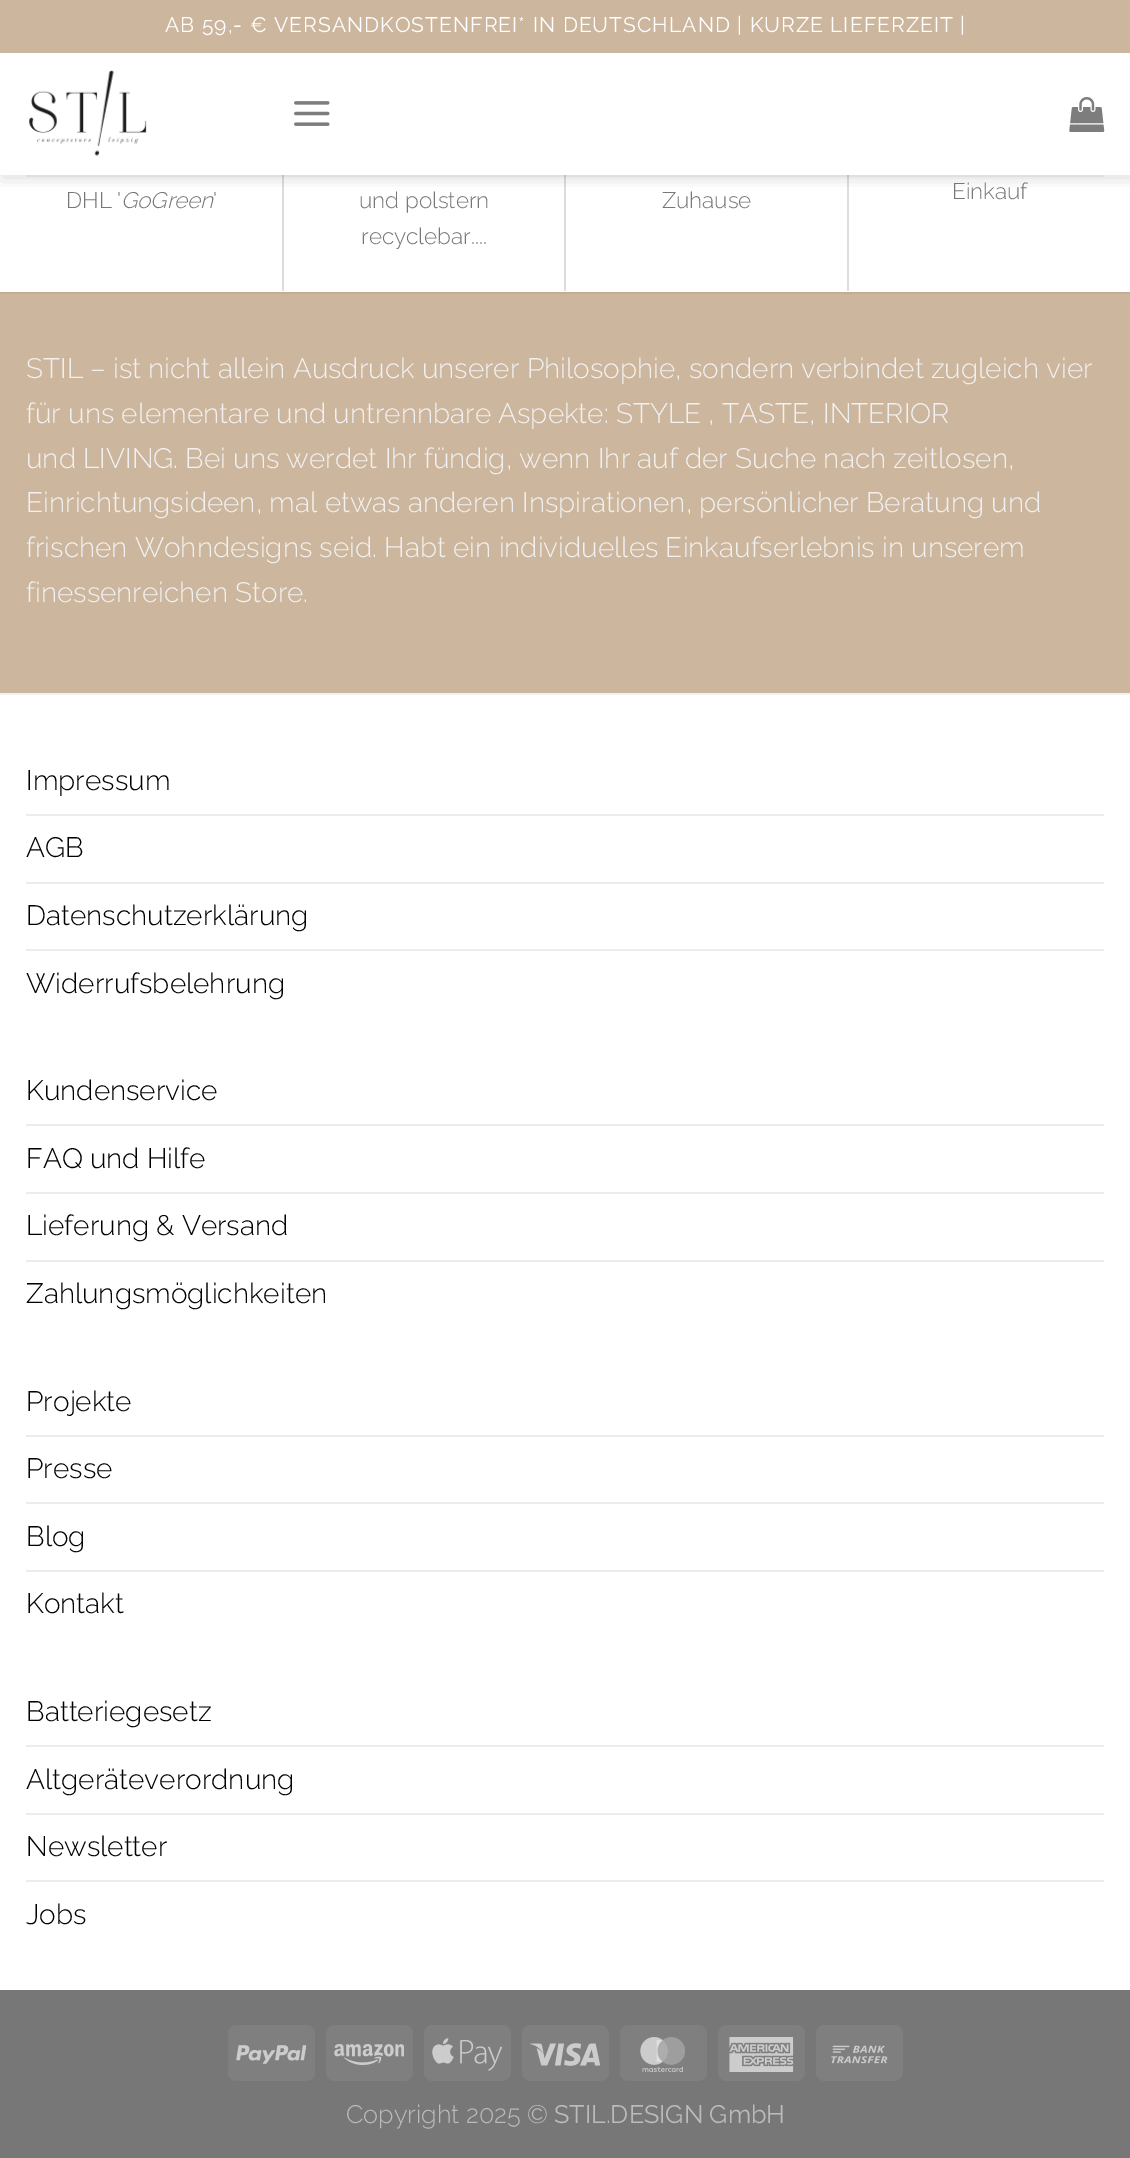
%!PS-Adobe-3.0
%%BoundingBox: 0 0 1130 2158
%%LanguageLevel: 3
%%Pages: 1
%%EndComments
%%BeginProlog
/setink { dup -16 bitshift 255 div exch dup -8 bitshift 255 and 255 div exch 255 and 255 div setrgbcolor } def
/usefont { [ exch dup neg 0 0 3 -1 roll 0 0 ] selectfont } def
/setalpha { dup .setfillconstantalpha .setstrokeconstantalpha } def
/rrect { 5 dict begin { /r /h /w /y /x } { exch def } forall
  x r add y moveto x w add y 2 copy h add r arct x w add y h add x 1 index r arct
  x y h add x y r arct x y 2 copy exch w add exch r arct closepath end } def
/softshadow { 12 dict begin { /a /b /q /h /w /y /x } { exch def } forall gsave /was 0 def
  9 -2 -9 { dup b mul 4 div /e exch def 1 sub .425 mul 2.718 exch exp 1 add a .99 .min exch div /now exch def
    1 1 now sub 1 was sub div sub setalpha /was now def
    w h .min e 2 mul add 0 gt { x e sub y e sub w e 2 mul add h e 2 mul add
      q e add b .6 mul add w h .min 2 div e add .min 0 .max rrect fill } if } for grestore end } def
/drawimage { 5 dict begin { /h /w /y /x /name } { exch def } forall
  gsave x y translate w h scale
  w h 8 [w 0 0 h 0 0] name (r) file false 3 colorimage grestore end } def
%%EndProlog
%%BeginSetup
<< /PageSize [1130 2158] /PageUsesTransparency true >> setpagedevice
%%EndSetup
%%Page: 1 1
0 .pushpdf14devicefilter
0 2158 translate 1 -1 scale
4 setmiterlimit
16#FFFFFF setink
0 0 1130 2158 rectfill
[
    [282 175 2 116 16#DDDDDD]
    [564 175 2 116 16#DDDDDD]
    [847 175 2 116 16#DDDDDD]
] { aload pop setink rectfill } forall
gsave
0 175 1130 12 rectclip
16#000000 setink
2 2 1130 175 0 9 0.15 softshadow
grestore
16#CCB69D setink
0 0 1130 53 rectfill
/Raleway-Regular 21 usefont
16#FFFFFF setink
165 32 moveto 1.05 0 (AB 59,- € VERSANDKOSTENFREI* IN DEUTSCHLAND | KURZE LIEFERZEIT |) ashow
(img1.raw) 29 70 120 103 drawimage
(img2.raw) 294 101 36 25 drawimage
(img3.raw) 1069 97 36 35 drawimage
0.1 setalpha
16#777777 setink
26 175 1078 2 rectfill
/Raleway-Light 22.5 usefont
1 setalpha
66 208 moveto (DHL ') show
/Raleway-LightItalic 22.5 usefont
121 208 moveto (GoGreen) show
/Raleway-Light 22.5 usefont
[
    [(') 213 208]
    [(und polstern) 359 208]
    [(recyclebar....) 361 244]
    [(Zuhause) 662 208]
    [(Einkauf) 952 199]
] { aload pop moveto show } forall
16#CCB69D setink
0 294 1130 399 rectfill
16#C2AD95 setink
0 292 1130 2 rectfill
/Raleway-Light 28 usefont
16#F1F1F1 setink
[
    [(STIL – ist nicht allein Ausdruck unserer Philosophie, sondern verbindet zugleich vier) 26 378]
    [(für uns elementare und untrennbare Aspekte: STYLE , TASTE, INTERIOR) 26 423]
    [(und LIVING. Bei uns werdet Ihr fündig, wenn Ihr auf der Suche nach zeitlosen,) 26 468]
    [(Einrichtungsideen, mal etwas anderen Inspirationen, persönlicher Beratung und) 26 512]
    [(frischen Wohndesigns seid. Habt ein individuelles Einkaufserlebnis in unserem) 26 557]
    [(finessenreichen Store.) 26 602]
] { aload pop moveto show } forall
16#F2F2F2 setink
0 693 1130 2 rectfill
16#000000 setink
26 790 moveto (Impressum) show
16#ECECEC setink
26 814 1078 2 rectfill
16#000000 setink
26 857 moveto (AGB) show
16#ECECEC setink
26 882 1078 2 rectfill
16#000000 setink
26 925 moveto (Datenschutzerklärung) show
16#ECECEC setink
26 949 1078 2 rectfill
16#000000 setink
26 993 moveto (Widerrufsbelehrung) show
26 1100 moveto (Kundenservice) show
16#ECECEC setink
26 1124 1078 2 rectfill
16#000000 setink
26 1168 moveto (FAQ und Hilfe) show
16#ECECEC setink
26 1192 1078 2 rectfill
16#000000 setink
26 1235 moveto (Lieferung & Versand) show
16#ECECEC setink
26 1260 1078 2 rectfill
16#000000 setink
26 1303 moveto (Zahlungsmöglichkeiten) show
26 1411 moveto (Projekte) show
16#ECECEC setink
26 1435 1078 2 rectfill
16#000000 setink
26 1478 moveto (Presse) show
16#ECECEC setink
26 1502 1078 2 rectfill
16#000000 setink
26 1546 moveto (Blog) show
16#ECECEC setink
26 1570 1078 2 rectfill
16#000000 setink
26 1613 moveto (Kontakt) show
26 1721 moveto (Batteriegesetz) show
16#ECECEC setink
26 1745 1078 2 rectfill
16#000000 setink
26 1789 moveto (Altgeräteverordnung) show
16#ECECEC setink
26 1813 1078 2 rectfill
16#000000 setink
26 1856 moveto (Newsletter) show
16#ECECEC setink
26 1880 1078 2 rectfill
16#000000 setink
26 1924 moveto (Jobs) show
16#777777 setink
0 1990 1130 168 rectfill
16#7F7F7F setink
228 2025 87 56 9 rrect fill
(img4.raw) 236 2045 70 19 drawimage
326 2025 87 56 9 rrect fill
(img5.raw) 334 2044 70 21 drawimage
424 2025 87 56 9 rrect fill
(img6.raw) 432 2038 70 33 drawimage
522 2025 87 56 9 rrect fill
(img7.raw) 530 2043 70 23 drawimage
620 2025 87 56 9 rrect fill
(img8.raw) 640 2037 45 35 drawimage
718 2025 87 56 9 rrect fill
(img9.raw) 729 2037 65 35 drawimage
816 2025 87 56 9 rrect fill
(img10.raw) 831 2045 57 19 drawimage
/Raleway-Light 25.25 usefont
16#BBBBBB setink
346 2123 moveto (Copyright 2025 ©) show
/Raleway-Regular 25.25 usefont
554 2123 moveto (STIL.DESIGN GmbH) show
.poppdf14devicefilter showpage
%%EOF
